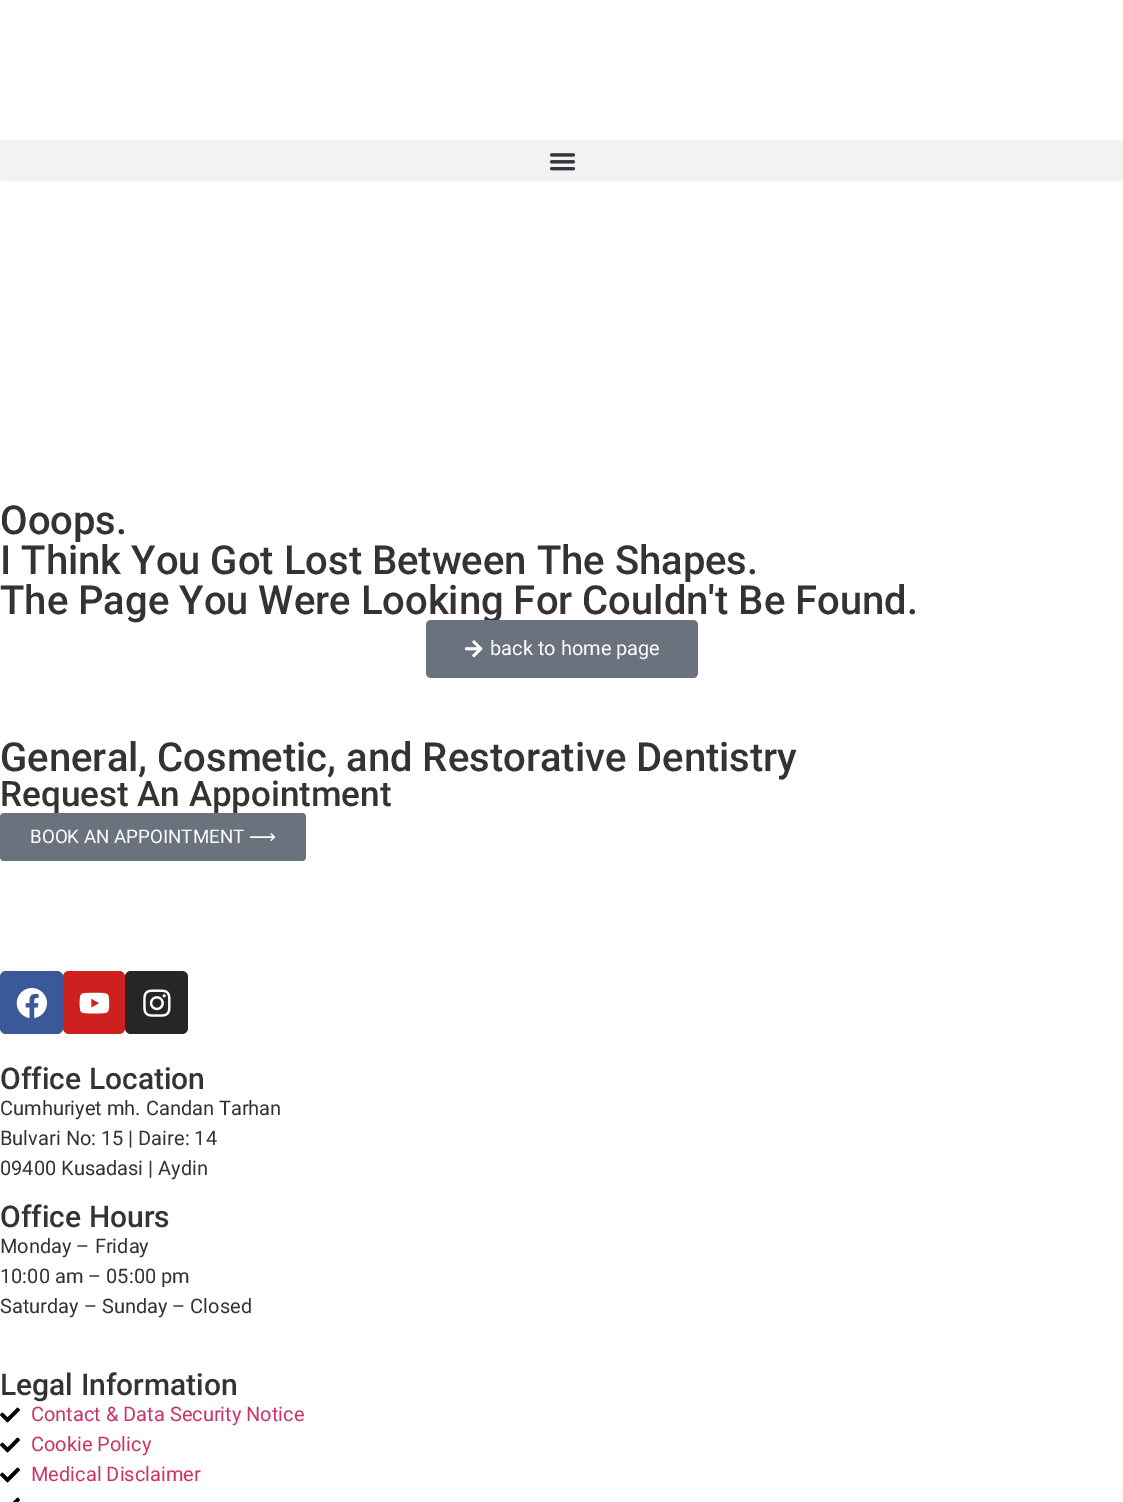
%!PS-Adobe-3.0
%%BoundingBox: 0 0 1123 1502
%%LanguageLevel: 3
%%Pages: 1
%%EndComments
%%BeginProlog
/setink { dup -16 bitshift 255 div exch dup -8 bitshift 255 and 255 div exch 255 and 255 div setrgbcolor } def
/usefont { [ exch dup neg 0 0 3 -1 roll 0 0 ] selectfont } def
/rrect { 5 dict begin { /r /h /w /y /x } { exch def } forall
  x r add y moveto x w add y 2 copy h add r arct x w add y h add x 1 index r arct
  x y h add x y r arct x y 2 copy exch w add exch r arct closepath end } def
/drawimage { 5 dict begin { /h /w /y /x /name } { exch def } forall
  gsave x y translate w h scale
  w h 8 [w 0 0 h 0 0] name (r) file false 3 colorimage grestore end } def
%%EndProlog
%%BeginSetup
<< /PageSize [1123 1502] >> setpagedevice
%%EndSetup
%%Page: 1 1
0 1502 translate 1 -1 scale
4 setmiterlimit
16#FFFFFF setink
0 0 1123 1502 rectfill
16#F2F2F2 setink
0 140 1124 41 4 rrect fill
(img1.raw) 549 153 27 18 drawimage
/Roboto-Medium 40 usefont
16#333333 setink
[
    [(Ooops.) 0 534]
    [(I Think You Got Lost Between The Shapes.) 0 574]
    [(The Page You Were Looking For Couldn't Be Found.) 0 614]
] { aload pop moveto show } forall
16#69727D setink
426 620 272 58 5 rrect fill
(img2.raw) 465 640 18 18 drawimage
/Roboto-Regular 20 usefont
16#FFFFFF setink
490 655 moveto (back to home page) show
/Roboto-Medium 40 usefont
16#333333 setink
0 771 moveto (General, Cosmetic, and Restorative Dentistry) show
/Roboto-Medium 35 usefont
0 806 moveto (Request An Appointment) show
16#69727D setink
0 813 306 48 4 rrect fill
/Roboto-Regular 18.75 usefont
16#FFFFFF setink
30 843 moveto (BOOK AN APPOINTMENT) show
/DejaVuSans-Regular 18.75 usefont
249 843 moveto (⟶) show
16#3B5998 setink
0 971 63 63 6 rrect fill
(img3.raw) 16 988 31 30 drawimage
16#CD201F setink
63 971 62 63 6 rrect fill
(img4.raw) 79 992 31 22 drawimage
16#262626 setink
125 971 63 63 6 rrect fill
(img5.raw) 143 989 28 28 drawimage
/Roboto-Medium 30 usefont
16#333333 setink
0 1089 moveto (Office Location) show
/Roboto-Regular 20 usefont
[
    [(Cumhuriyet mh. Candan Tarhan) 0 1115]
    [(Bulvari No: 15 | Daire: 14) 0 1145]
    [(09400 Kusadasi | Aydin) 0 1175]
] { aload pop moveto show } forall
/Roboto-Medium 30 usefont
0 1227 moveto (Office Hours) show
/Roboto-Regular 20 usefont
[
    [(Monday – Friday) 0 1253]
    [(10:00 am – 05:00 pm) 0 1283]
    [(Saturday – Sunday – Closed) 0 1313]
] { aload pop moveto show } forall
/Roboto-Medium 30 usefont
0 1395 moveto (Legal Information) show
(img6.raw) 0 1407 20 16 drawimage
/Roboto-Regular 20 usefont
16#CC3366 setink
31 1421 moveto (Contact & Data Security Notice) show
(img6.raw) 0 1437 20 16 drawimage
31 1451 moveto (Cookie Policy) show
(img6.raw) 0 1467 20 16 drawimage
31 1481 moveto (Medical Disclaimer) show
(img7.raw) 12 1497 8 5 drawimage
showpage
%%EOF
